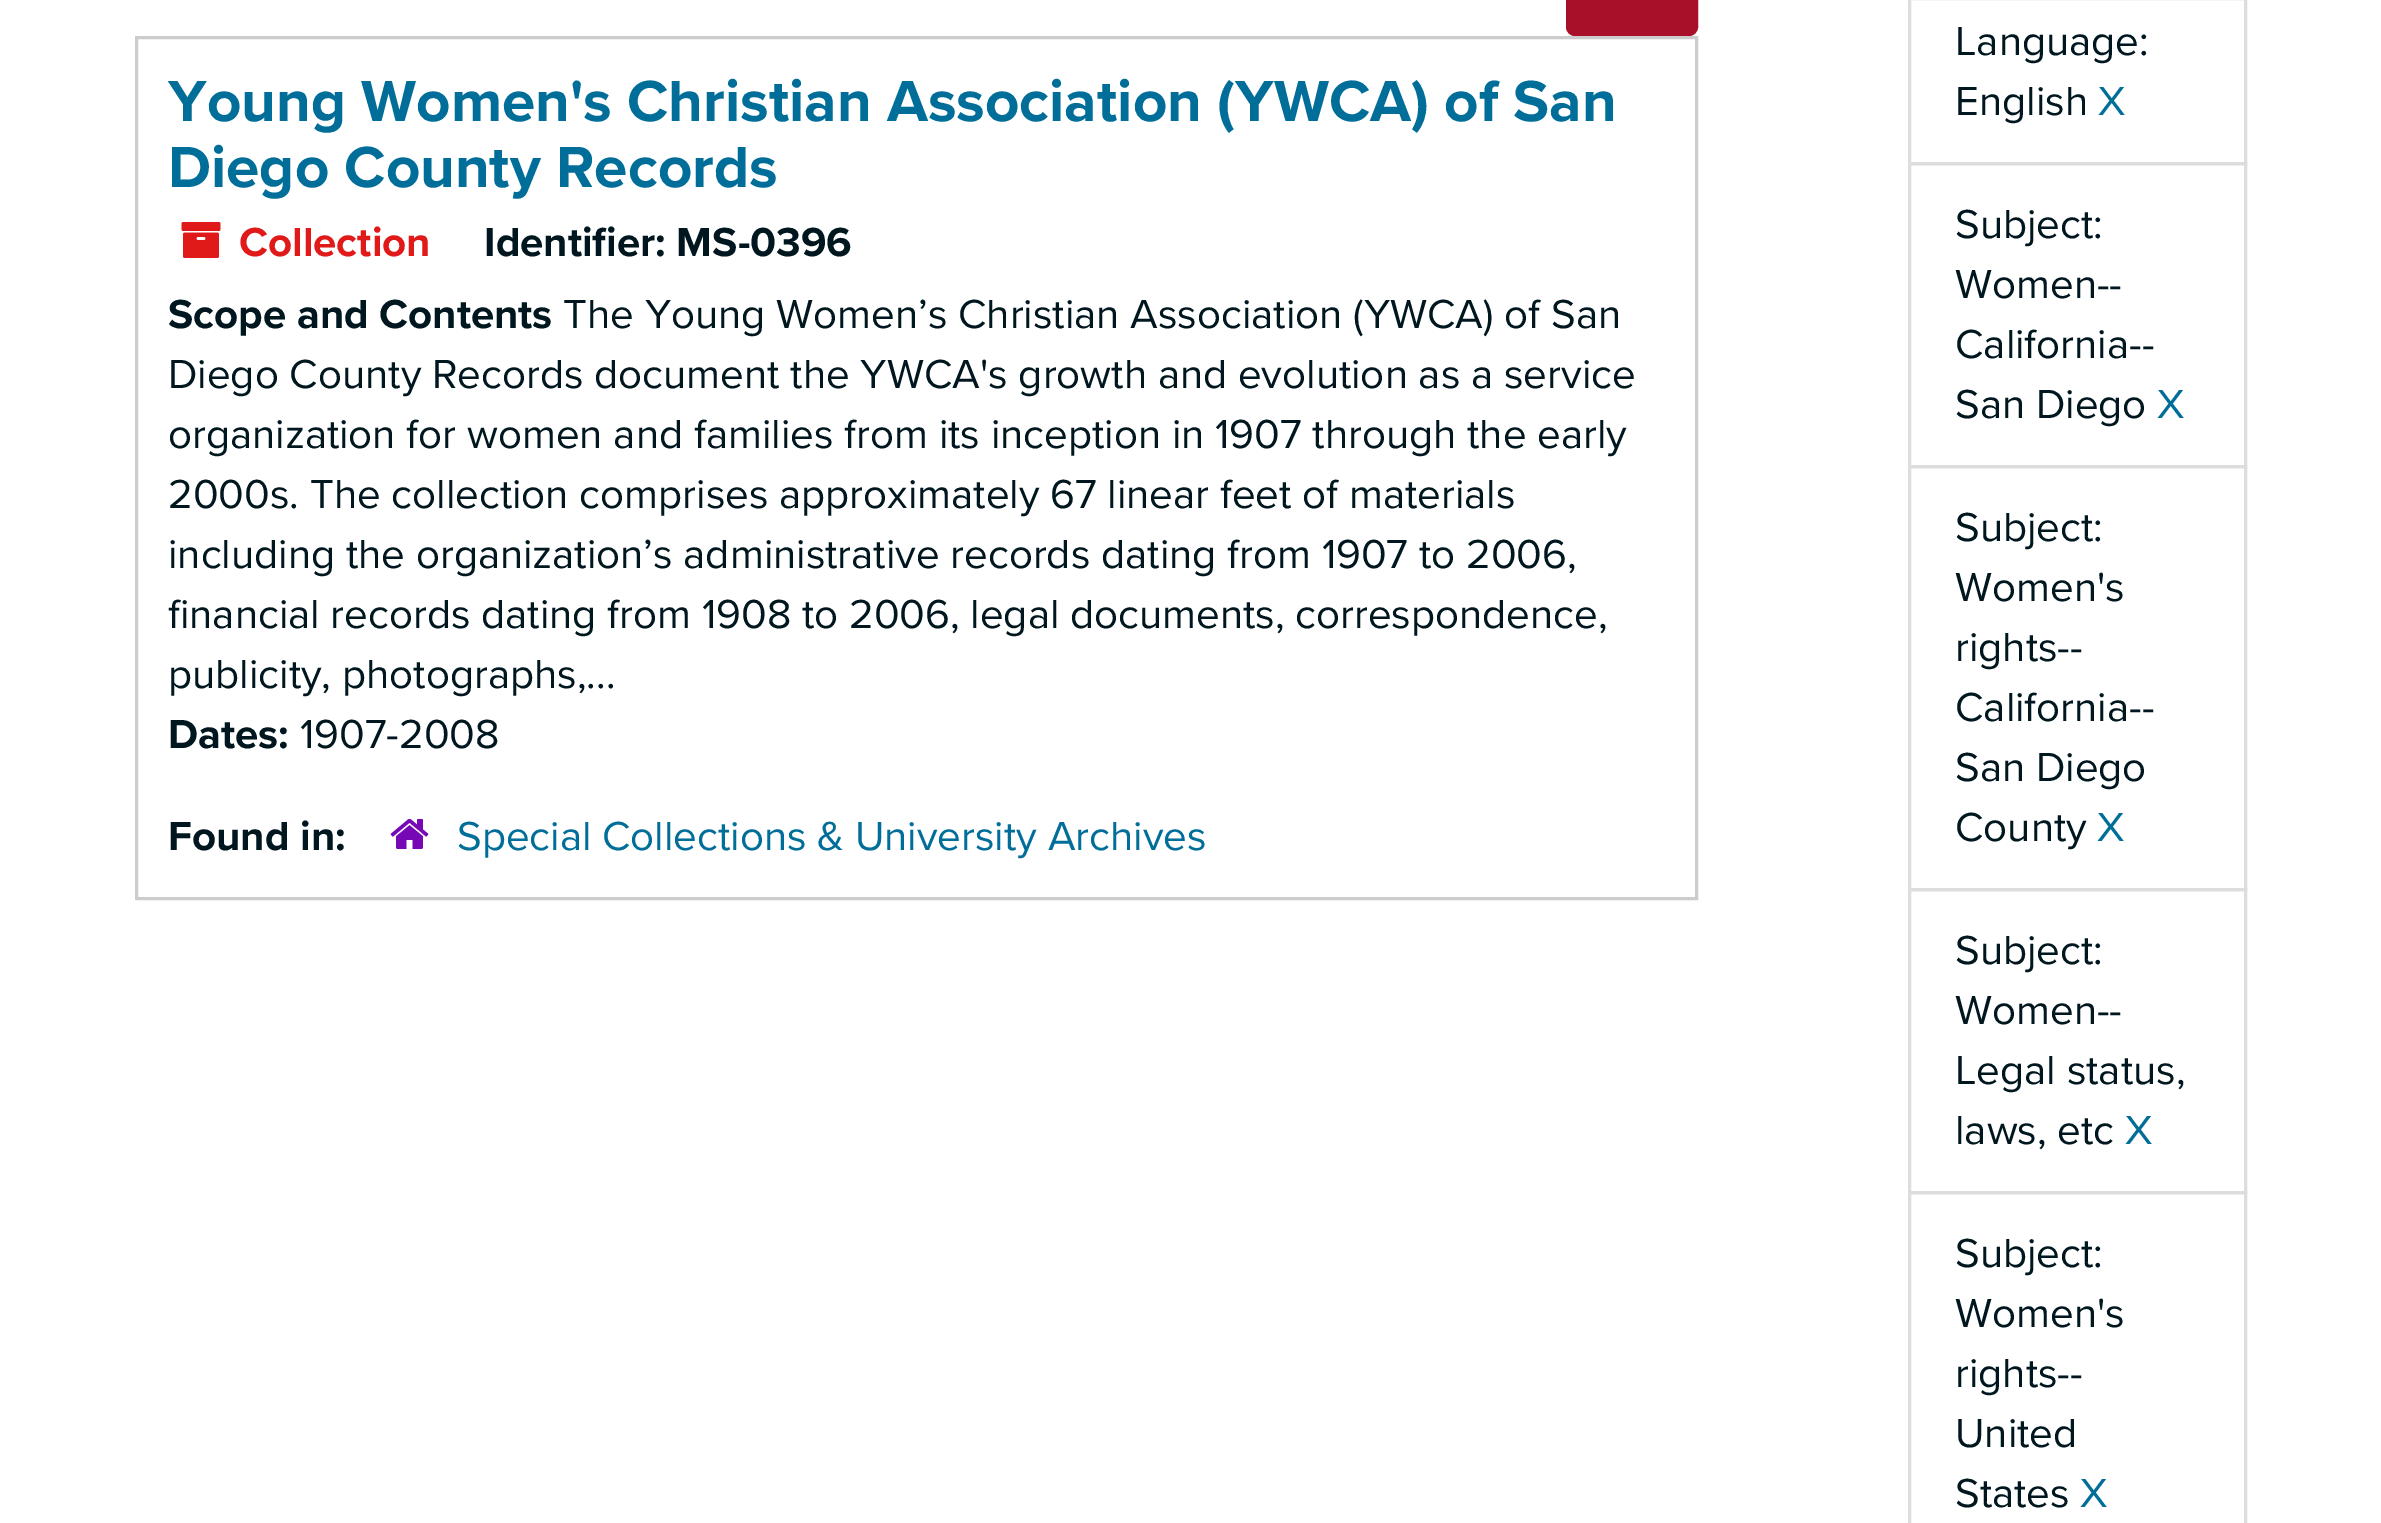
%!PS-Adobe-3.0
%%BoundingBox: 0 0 2381 1523
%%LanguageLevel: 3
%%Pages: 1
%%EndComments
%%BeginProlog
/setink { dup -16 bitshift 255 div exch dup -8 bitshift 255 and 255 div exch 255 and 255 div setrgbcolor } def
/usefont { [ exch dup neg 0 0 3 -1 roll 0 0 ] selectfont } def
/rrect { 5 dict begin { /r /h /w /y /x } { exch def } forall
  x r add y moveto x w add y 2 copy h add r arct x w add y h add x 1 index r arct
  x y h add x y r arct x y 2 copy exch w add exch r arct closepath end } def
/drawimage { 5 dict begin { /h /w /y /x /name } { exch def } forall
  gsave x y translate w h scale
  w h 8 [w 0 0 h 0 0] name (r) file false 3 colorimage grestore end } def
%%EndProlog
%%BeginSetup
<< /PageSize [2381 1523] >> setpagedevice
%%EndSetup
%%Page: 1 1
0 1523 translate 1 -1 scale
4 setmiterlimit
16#FFFFFF setink
0 0 2381 1523 rectfill
16#A81029 setink
1567.5 -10.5 129 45 7.5 rrect gsave fill grestore
3 setlinewidth
stroke
16#CCCCCC setink
136.5 37.5 1560 861 rectstroke
/ProximaNova-Bold 60 usefont
16#006E99 setink
168 121 moveto (Young Women's Christian Association \(YWCA\) of San) show
168 187 moveto (Diego County Records) show
(img1.raw) 181 222 40 36 drawimage
/ProximaNova-Bold 42 usefont
16#E01919 setink
239 256 moveto (Collection) show
16#00171F setink
484 256 moveto (Identifier: MS-0396) show
168 328 moveto (Scope and Contents) show
/ProximaNova-Regular 42 usefont
[
    [(The Young Women’s Christian Association \(YWCA\) of San) 563 328]
    [(Diego County Records document the YWCA's growth and evolution as a service) 168 388]
    [(organization for women and families from its inception in 1907 through the early) 168 448]
    [(2000s. The collection comprises approximately 67 linear feet of materials) 168 508]
    [(including the organization’s administrative records dating from 1907 to 2006,) 168 568]
    [(financial records dating from 1908 to 2006, legal documents, correspondence,) 168 628]
    [(publicity, photographs,...) 168 688]
] { aload pop moveto show } forall
/ProximaNova-Bold 42 usefont
168 748 moveto (Dates:) show
/ProximaNova-Regular 42 usefont
300 748 moveto (1907-2008) show
/ProximaNova-Bold 42 usefont
168 850 moveto (Found in:) show
(img2.raw) 390 818 39 31 drawimage
/ProximaNova-Regular 42 usefont
16#006E99 setink
457 850 moveto (Special Collections & University Archives) show
16#DDDDDD setink
1909.5 -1.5 336 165 rectstroke
16#00171F setink
1955 55 moveto (Language:) show
1955 115 moveto (English) show
16#006E99 setink
2098 115 moveto (X) show
16#DDDDDD setink
1909.5 163.5 336 303 rectstroke
16#00171F setink
[
    [(Subject:) 1955 238]
    [(Women--) 1955 298]
    [(California--) 1955 358]
    [(San Diego) 1955 418]
] { aload pop moveto show } forall
16#006E99 setink
2157 418 moveto (X) show
16#DDDDDD setink
1909.5 466.5 336 423 rectstroke
16#00171F setink
[
    [(Subject:) 1955 541]
    [(Women's) 1955 601]
    [(rights--) 1955 661]
    [(California--) 1955 721]
    [(San Diego) 1955 781]
    [(County) 1955 841]
] { aload pop moveto show } forall
16#006E99 setink
2097 841 moveto (X) show
16#DDDDDD setink
1909.5 889.5 336 303 rectstroke
16#00171F setink
[
    [(Subject:) 1955 964]
    [(Women--) 1955 1024]
    [(Legal status,) 1955 1084]
    [(laws, etc) 1955 1144]
] { aload pop moveto show } forall
16#006E99 setink
2125 1144 moveto (X) show
16#DDDDDD setink
1909.5 1192.5 336 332 rectstroke
16#00171F setink
[
    [(Subject:) 1955 1267]
    [(Women's) 1955 1327]
    [(rights--) 1955 1387]
    [(United) 1955 1447]
    [(States) 1955 1507]
] { aload pop moveto show } forall
16#006E99 setink
2080 1507 moveto (X) show
showpage
%%EOF
